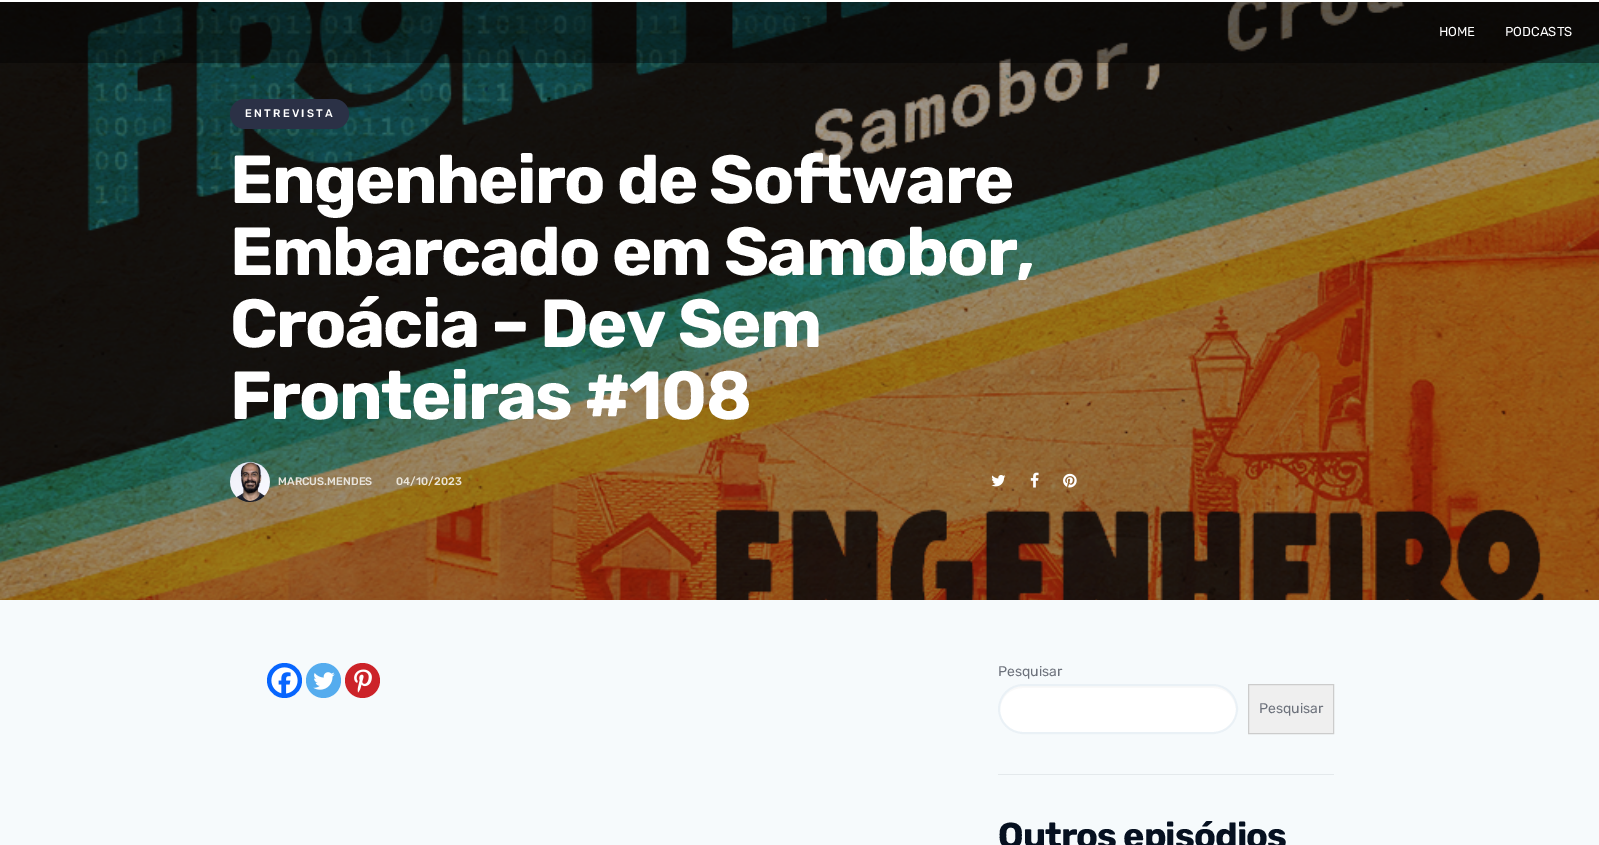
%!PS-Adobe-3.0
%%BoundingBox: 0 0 1599 845
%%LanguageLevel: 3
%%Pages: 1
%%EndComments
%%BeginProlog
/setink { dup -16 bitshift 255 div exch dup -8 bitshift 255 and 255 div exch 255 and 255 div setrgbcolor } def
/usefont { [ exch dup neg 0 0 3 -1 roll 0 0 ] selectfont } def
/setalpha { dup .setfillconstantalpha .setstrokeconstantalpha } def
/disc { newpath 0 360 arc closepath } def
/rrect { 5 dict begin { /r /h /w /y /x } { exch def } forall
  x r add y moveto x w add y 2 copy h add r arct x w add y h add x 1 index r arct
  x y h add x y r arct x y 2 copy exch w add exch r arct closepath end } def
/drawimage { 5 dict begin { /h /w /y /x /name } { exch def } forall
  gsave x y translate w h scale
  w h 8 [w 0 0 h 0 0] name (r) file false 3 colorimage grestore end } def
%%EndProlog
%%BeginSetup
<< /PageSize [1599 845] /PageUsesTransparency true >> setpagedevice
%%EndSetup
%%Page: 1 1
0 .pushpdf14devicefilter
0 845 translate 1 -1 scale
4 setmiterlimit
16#F6FAFC setink
0 0 1599 845 rectfill
16#FFFFFF setink
0 0 1599 2 rectfill
(img1.raw) 0 2 1599 598 drawimage
0.41 setalpha
16#000000 setink
0 2 1599 61 rectfill
/Rubik-Regular 13 usefont
1 setalpha
16#FFFFFF setink
1439 36 moveto (HOME) show
1505 36 moveto (PODCASTS) show
16#2B3146 setink
230 99 119 30 15 rrect fill
/Rubik-Medium 11 usefont
16#FFFFFF setink
245 117 moveto 2.25 0 (ENTREVISTA) ashow
/Rubik-Bold 68 usefont
230 203 moveto -1.7 0 (Engenheiro de Software) ashow
230 275 moveto -1.7 0 (Embarcado em Samobor,) ashow
230 347 moveto -1.7 0 (Croácia – Dev Sem) ashow
230 419 moveto -1.7 0 (Fronteiras #108) ashow
(img2.raw) 230 462 40 40 drawimage
/Rubik-Medium 11 usefont
16#E7E4DD setink
278 485 moveto (MARCUS.MENDES) show
16#EAE4D7 setink
396 485 moveto (04/10/2023) show
(img3.raw) 991 475 15 12 drawimage
(img4.raw) 1030 472 9 16 drawimage
(img5.raw) 1063 473 14 15 drawimage
16#0765FE setink
284.5 680.5 17.5 disc fill
(img6.raw) 271 667 27 27 drawimage
16#55ACEE setink
323.5 680.5 17.5 disc fill
(img7.raw) 313 672 22 18 drawimage
16#CC2329 setink
362.5 680.5 17.5 disc fill
(img8.raw) 354 669 18 24 drawimage
16#E4E9EC setink
998 774 336 1 rectfill
/Rubik-Regular 14 usefont
16#6D727C setink
998 676 moveto (Pesquisar) show
16#FFFFFF setink
998 684 240 50 25 rrect fill
16#F9F9F9 setink
1023 688 moveto 1213 688 lineto 1226 688 1235 697 1236 710 curveto 1236 709 lineto 1236 696 1226 686 1213 686 curveto 1023 686 lineto 1010 686 1000 696 1000 709 curveto 1000 710 lineto 1001 697 1010 688 1023 688 curveto closepath fill
16#EAF1F6 setink
2 setlinewidth
999 685 238 48 24 rrect stroke
16#EFEFEF setink
1248.5 684.5 moveto 1333.5 684.5 lineto 1333.5 733.5 lineto 1248.5 733.5 lineto closepath gsave fill grestore
16#CCCCCC setink
1 setlinewidth
stroke
16#6D727C setink
1259 713 moveto (Pesquisar) show
/Rubik-Bold 36 usefont
16#061020 setink
998 848 moveto -0.9 0 (Outros episódios) ashow
.poppdf14devicefilter showpage
%%EOF
